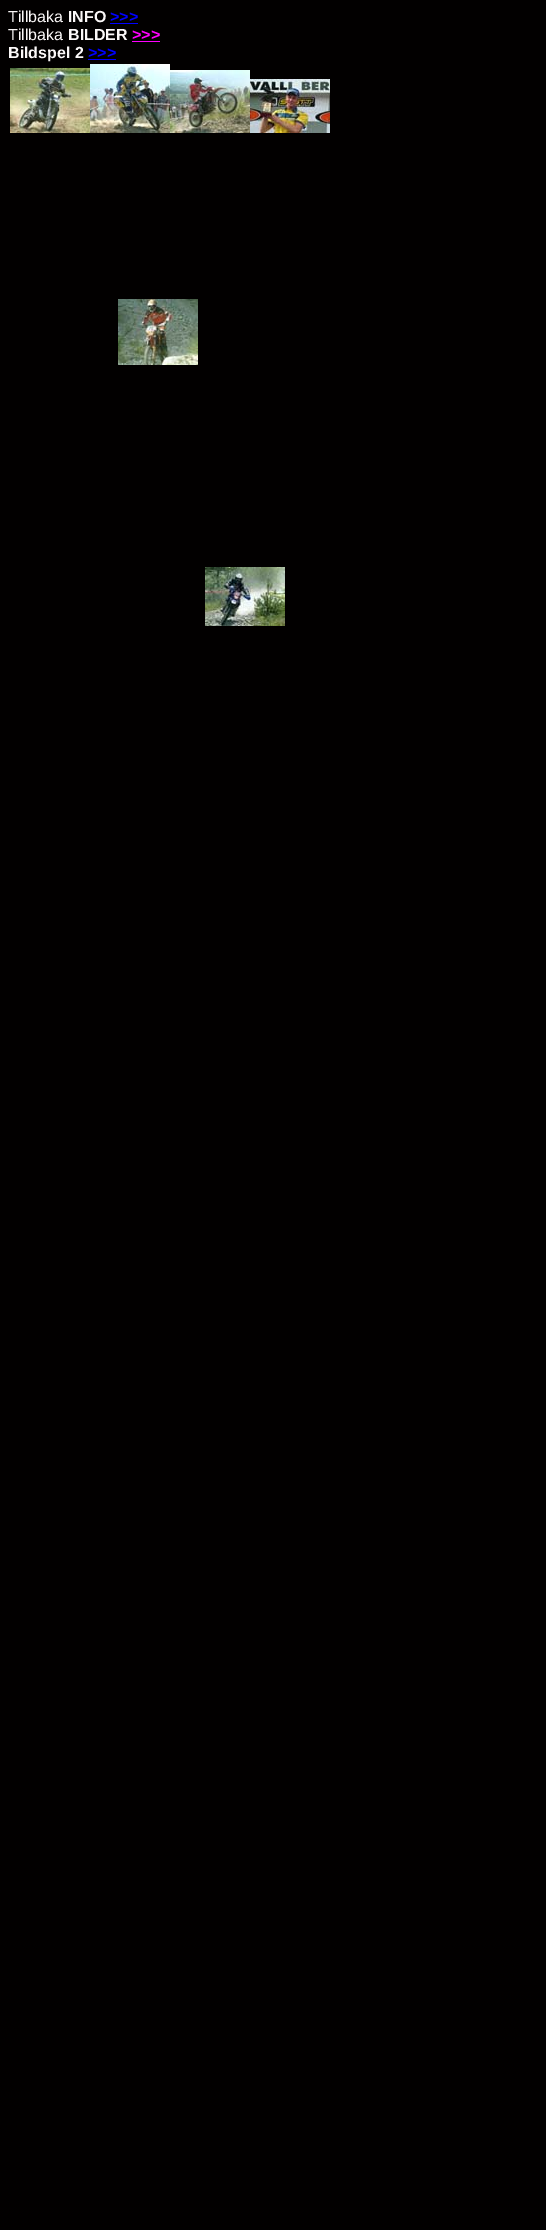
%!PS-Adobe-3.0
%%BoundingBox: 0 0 546 2230
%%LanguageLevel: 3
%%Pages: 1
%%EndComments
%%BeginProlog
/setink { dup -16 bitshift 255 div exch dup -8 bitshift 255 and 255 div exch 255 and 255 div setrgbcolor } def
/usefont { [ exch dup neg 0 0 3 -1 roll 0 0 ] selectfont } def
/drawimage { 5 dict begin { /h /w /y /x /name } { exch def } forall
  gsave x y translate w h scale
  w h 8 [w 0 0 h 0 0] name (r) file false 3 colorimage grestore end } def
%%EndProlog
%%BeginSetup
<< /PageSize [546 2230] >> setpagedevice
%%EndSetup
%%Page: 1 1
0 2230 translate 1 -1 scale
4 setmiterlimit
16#020000 setink
0 0 546 2230 rectfill
/LiberationSans-Regular 16 usefont
16#FBF8F8 setink
8 22 moveto (Tillbaka) show
/LiberationSans-Bold 16 usefont
68 22 moveto (INFO) show
16#0000FF setink
110 22 moveto (>>>) show
110 23 28 1 rectfill
/LiberationSans-Regular 16 usefont
16#FBF8F8 setink
8 40 moveto (Tillbaka) show
/LiberationSans-Bold 16 usefont
68 40 moveto (BILDER) show
16#FF00FF setink
132 40 moveto (>>>) show
132 41 28 1 rectfill
16#FBF8F8 setink
8 58 moveto (Bildspel 2) show
16#0000FF setink
88 58 moveto (>>>) show
88 59 28 1 rectfill
(img1.raw) 10 68 80 65 drawimage
(img2.raw) 90 64 80 69 drawimage
(img3.raw) 170 70 80 63 drawimage
(img4.raw) 250 79 80 54 drawimage
(img5.raw) 118 299 80 66 drawimage
(img6.raw) 205 567 80 59 drawimage
showpage
%%EOF
